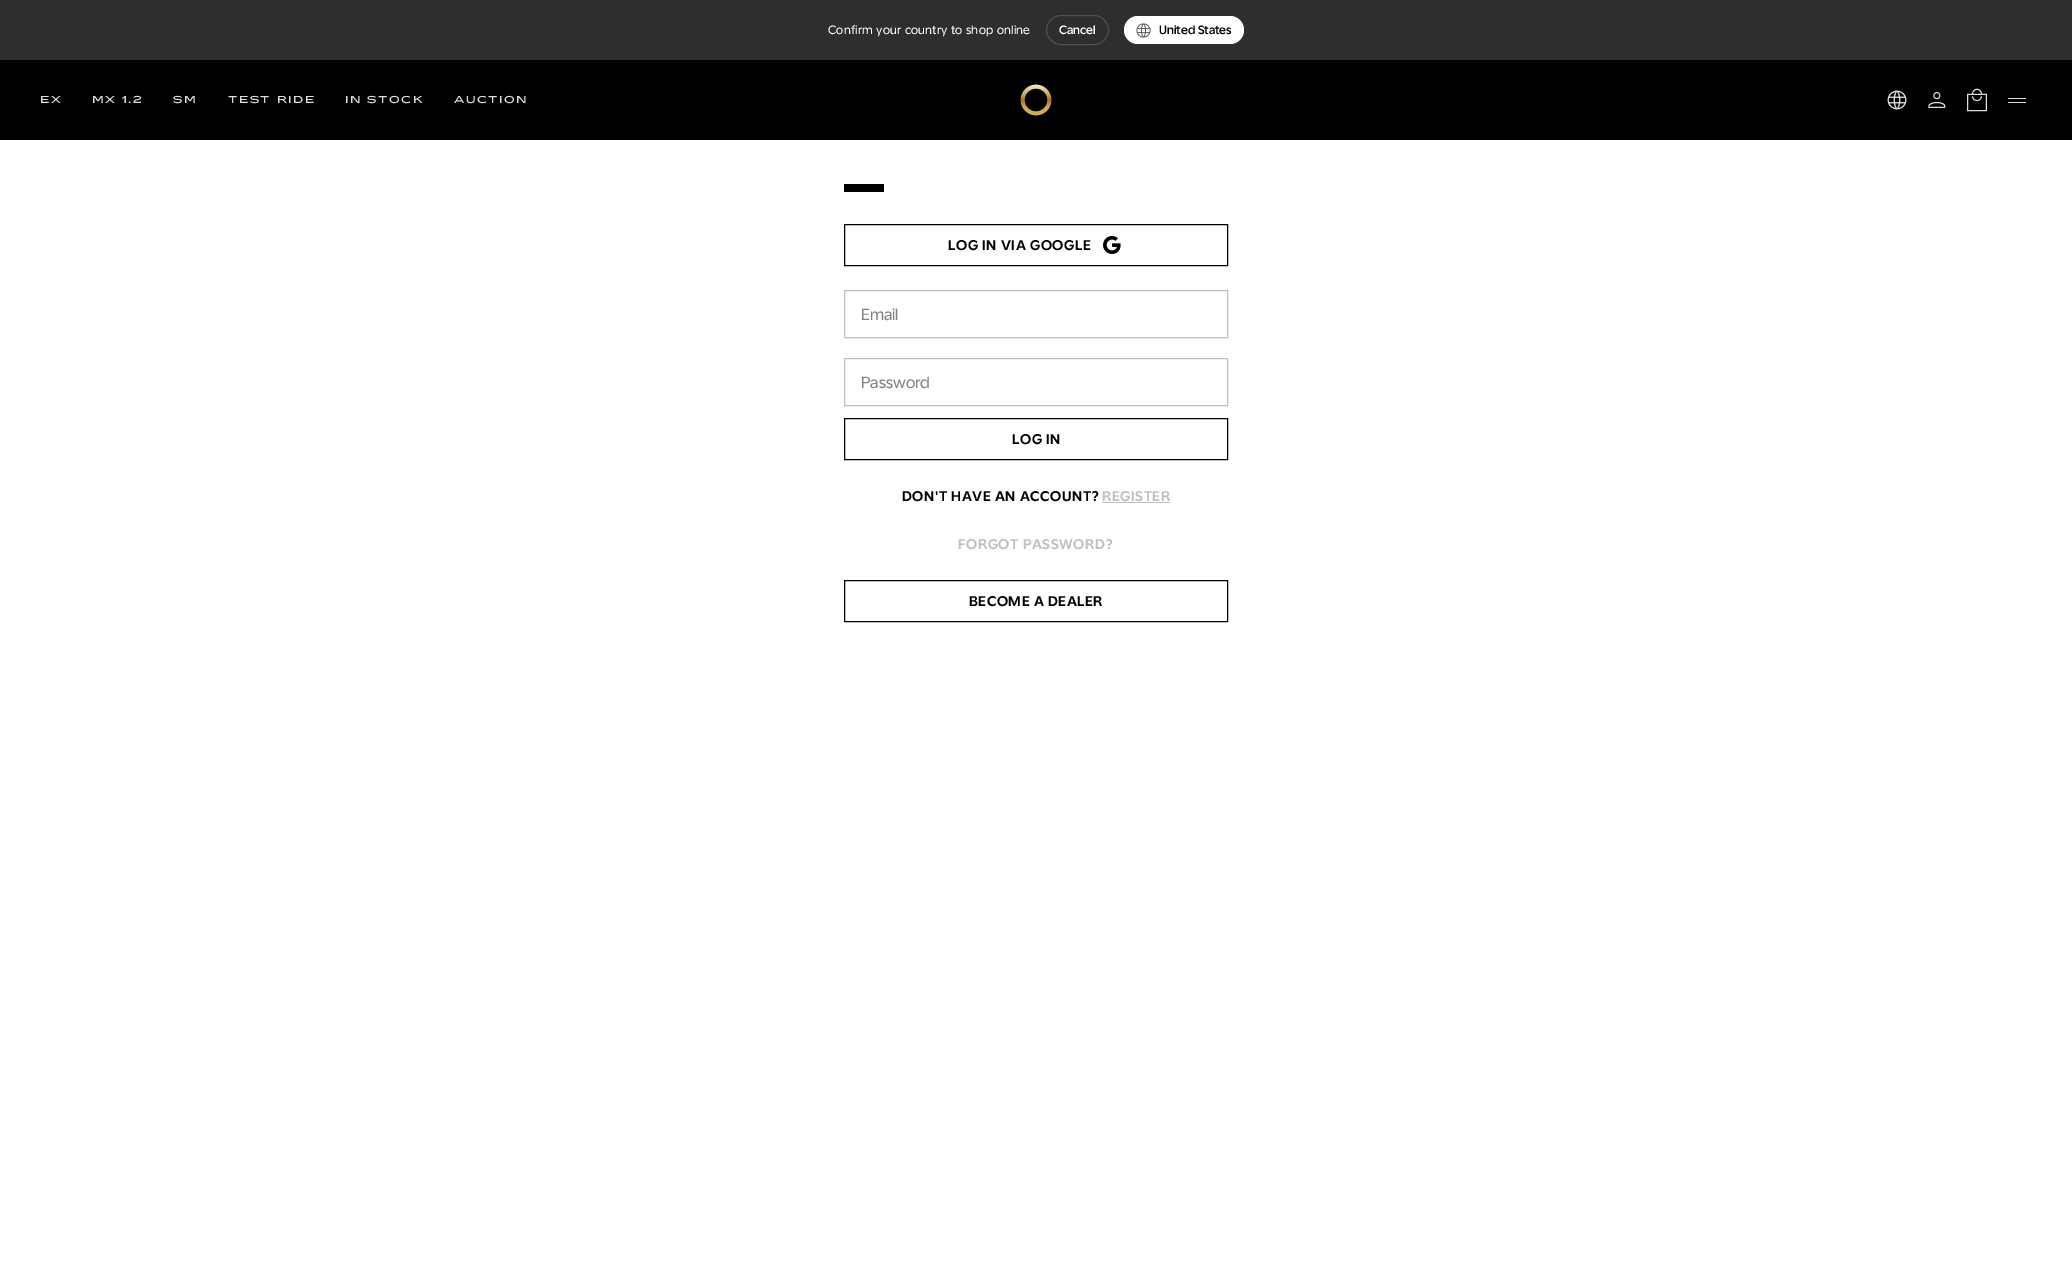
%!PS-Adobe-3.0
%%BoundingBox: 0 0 2072 1286
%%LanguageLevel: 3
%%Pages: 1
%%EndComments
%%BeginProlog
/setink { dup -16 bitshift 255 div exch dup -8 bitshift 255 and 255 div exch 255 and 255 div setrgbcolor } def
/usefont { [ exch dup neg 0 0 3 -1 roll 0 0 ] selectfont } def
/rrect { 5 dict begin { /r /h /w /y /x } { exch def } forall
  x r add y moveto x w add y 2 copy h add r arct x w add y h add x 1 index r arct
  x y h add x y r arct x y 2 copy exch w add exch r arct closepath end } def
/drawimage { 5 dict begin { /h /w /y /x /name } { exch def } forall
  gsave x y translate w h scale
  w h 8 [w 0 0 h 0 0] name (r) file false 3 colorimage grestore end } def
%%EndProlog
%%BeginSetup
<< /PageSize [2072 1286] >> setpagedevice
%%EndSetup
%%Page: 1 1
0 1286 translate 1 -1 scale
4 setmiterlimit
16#FFFFFF setink
0 0 2072 1286 rectfill
16#2E2E2E setink
0 0 2072 60 rectfill
/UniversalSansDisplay-Regular 12 usefont
16#FFFFFF setink
828 34 moveto 0.3 0 (Confirm your country to shop online) ashow
16#4F4F4F setink
1046.5 15.5 62 29 14.5 rrect stroke
/UniversalSansDisplay-Medium 12 usefont
16#FFFFFF setink
1059 34 moveto (Cancel) show
1124 16 120 28 14 rrect fill
(img1.raw) 1136 23 15 15 drawimage
16#000000 setink
1159 34 moveto (United States) show
0 60 2072 80 rectfill
/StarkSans-Regular 10 usefont
16#DEDEDE setink
40 103 moveto 1.5 0 (EX) ashow
92 103 moveto 1.5 0 (MX 1.2) ashow
173 103 moveto 1.5 0 (SM) ashow
228 103 moveto 1.5 0 (TEST RIDE) ashow
345 103 moveto 1.5 0 (IN STOCK) ashow
454 103 moveto 1.5 0 (AUCTION) ashow
(img2.raw) 1020 84 32 32 drawimage
(img3.raw) 1887 90 20 20 drawimage
(img4.raw) 1928 92 18 16 drawimage
(img5.raw) 1967 88 20 24 drawimage
[
    [2008 98 18 1 16#DEDEDE]
    [2008 102 18 1 16#DEDEDE]
    [844 184 40 8 16#000000]
] { aload pop setink rectfill } forall
844.5 224.5 383 41 rectstroke
/UniversalSansDisplay-SemiBold 14 usefont
948 250 moveto 0.6 0 (LOG IN VIA GOOGLE) ashow
(img6.raw) 1103 236 18 18 drawimage
16#BFBFBF setink
844.5 290.5 383 47 rectstroke
/UniversalSansDisplay-Regular 16 usefont
16#808080 setink
861 320 moveto (Email) show
16#BFBFBF setink
844.5 358.5 383 47 rectstroke
16#808080 setink
861 388 moveto (Password) show
16#000000 setink
844.5 418.5 383 41 rectstroke
/UniversalSansDisplay-SemiBold 14 usefont
1012 444 moveto 0.6 0 (LOG IN) ashow
902 501 moveto 0.6 0 (DON'T HAVE AN ACCOUNT?) ashow
16#BFBFBF setink
1102 501 moveto 0.6 0 (REGISTER) ashow
1102 502 68 1 rectfill
958 549 moveto 0.6 0 (FORGOT PASSWORD?) ashow
16#000000 setink
844.5 580.5 383 41 rectstroke
969 606 moveto 0.6 0 (BECOME A DEALER) ashow
showpage
%%EOF
